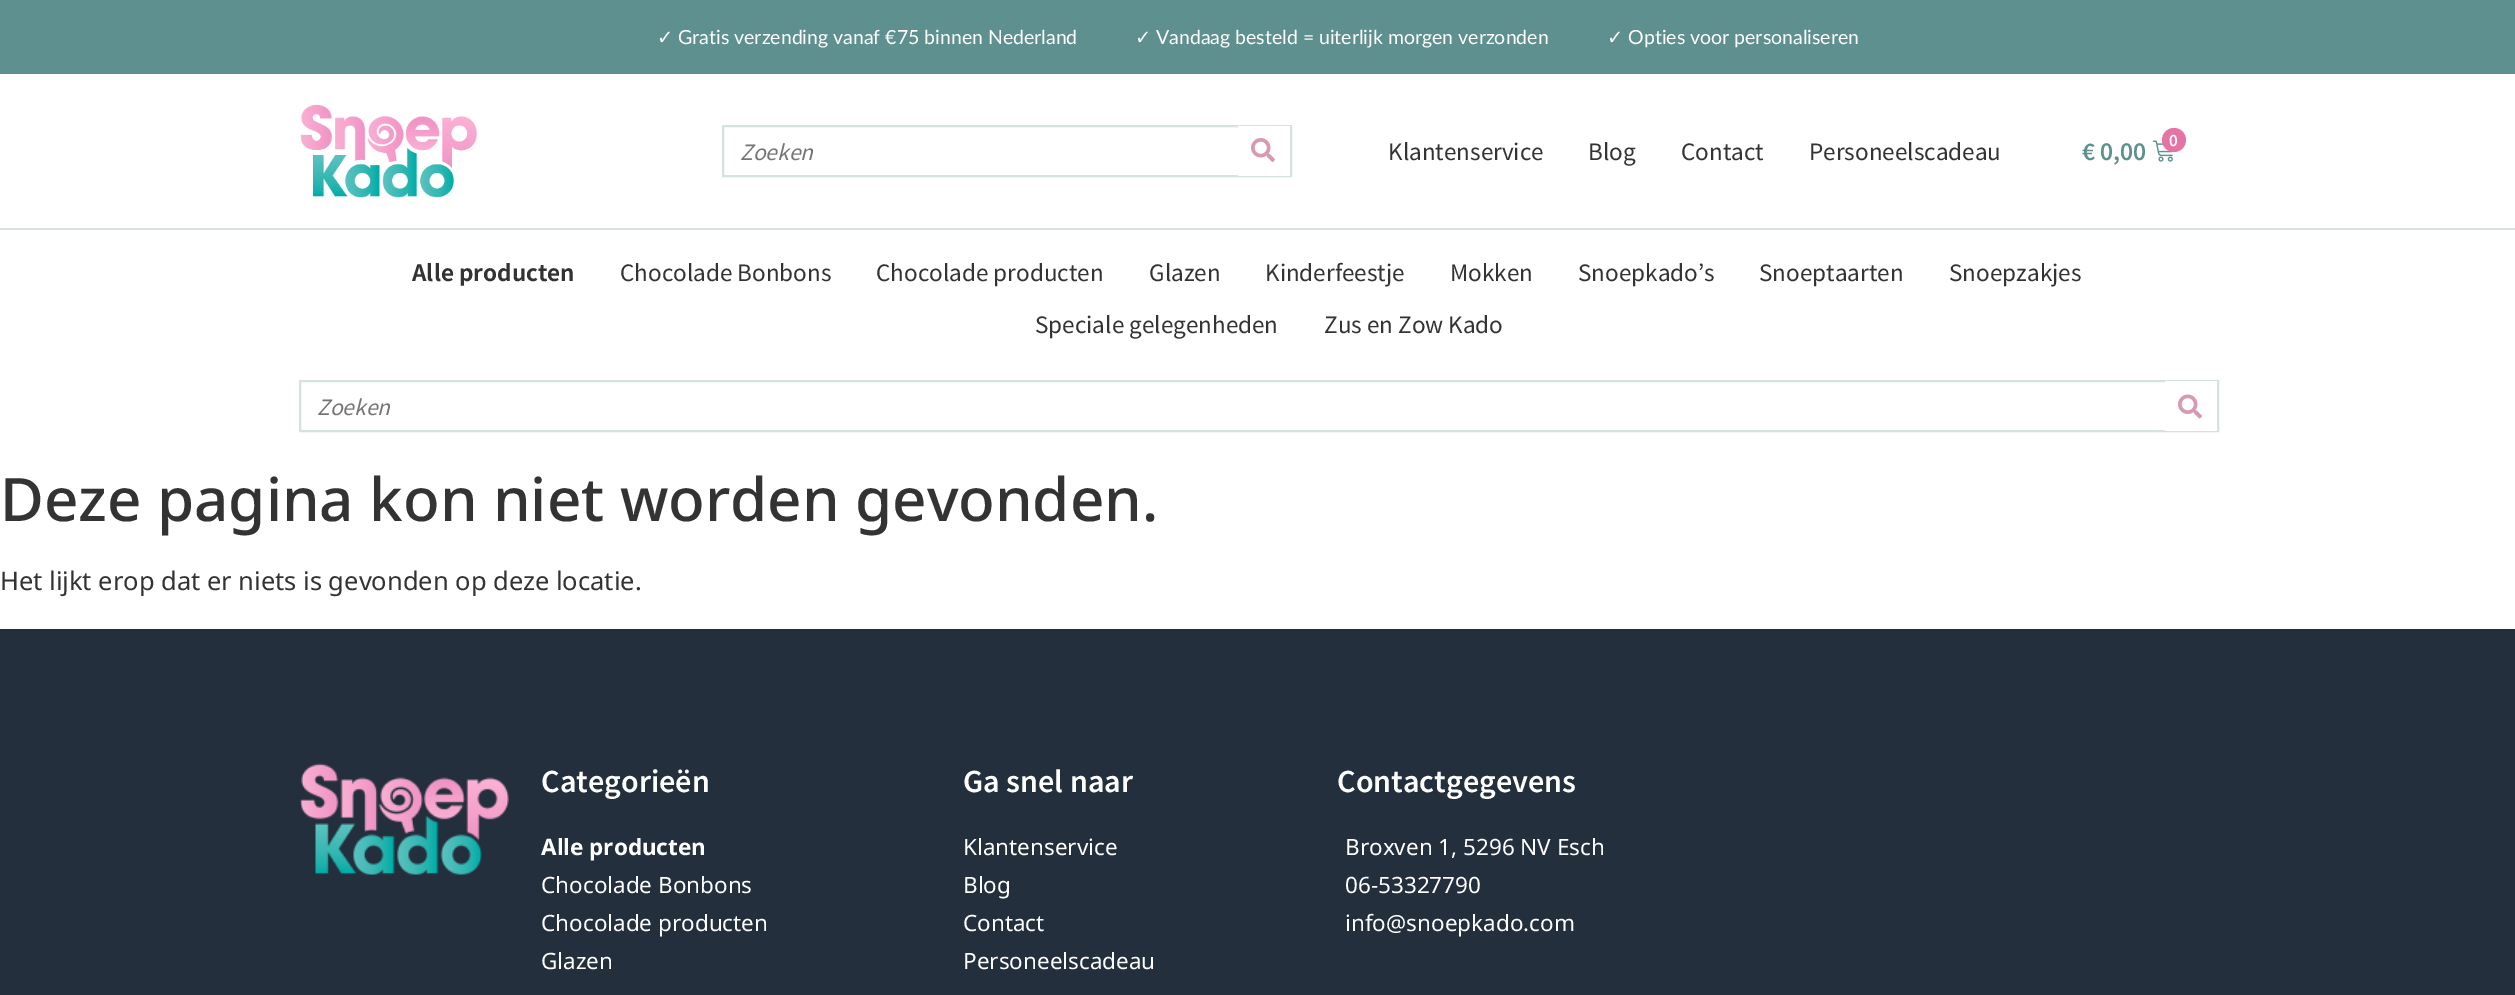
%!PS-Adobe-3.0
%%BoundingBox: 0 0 2515 995
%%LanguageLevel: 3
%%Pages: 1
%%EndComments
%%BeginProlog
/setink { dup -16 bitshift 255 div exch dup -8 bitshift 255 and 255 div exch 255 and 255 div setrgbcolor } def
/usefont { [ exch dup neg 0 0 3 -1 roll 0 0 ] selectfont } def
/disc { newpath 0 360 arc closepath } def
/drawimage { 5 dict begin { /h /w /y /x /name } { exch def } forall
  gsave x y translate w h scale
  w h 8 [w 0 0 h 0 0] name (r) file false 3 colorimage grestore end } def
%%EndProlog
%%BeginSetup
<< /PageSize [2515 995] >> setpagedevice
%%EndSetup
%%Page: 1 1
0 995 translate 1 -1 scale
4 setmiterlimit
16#FFFFFF setink
0 0 2515 995 rectfill
16#5E908F setink
0 0 2515 74 rectfill
/DejaVuSans-Regular 19.5 usefont
16#FFFFFF setink
657 44 moveto (✓) show
/Lato-Regular 19.5 usefont
678 44 moveto (Gratis verzending vanaf €75 binnen Nederland) show
/DejaVuSans-Regular 19.5 usefont
1135 44 moveto (✓) show
/Lato-Regular 19.5 usefont
1156 44 moveto (Vandaag besteld = uiterlijk morgen verzonden) show
/DejaVuSans-Regular 19.5 usefont
1607 44 moveto (✓) show
/Lato-Regular 19.5 usefont
1628 44 moveto (Opties voor personaliseren) show
16#D7E1E1 setink
0 228 2515 2 rectfill
(img1.raw) 300 104 177 94 drawimage
2 setlinewidth
723 126 568 50 rectstroke
/NotoSansJP-Italic 21 usefont
16#757575 setink
740 160 moveto (Zoeken) show
16#FFFFFF setink
1238 126 52 50 rectfill
(img2.raw) 1251 138 24 24 drawimage
/NotoSansJP-Regular 22.5 usefont
16#333333 setink
[
    [(Klantenservice) 1388 160]
    [(Blog) 1588 160]
    [(Contact) 1681 160]
    [(Personeelscadeau) 1809 160]
] { aload pop moveto show } forall
(img3.raw) 2152 140 22 22 drawimage
16#E473A6 setink
2174 140 12 disc fill
/NotoSansJP-SemiBold 15 usefont
16#FFFFFF setink
2169 146 moveto (0) show
/NotoSansJP-SemiBold 22.5 usefont
16#5E908F setink
2082 160 moveto (€ 0,00) show
/NotoSansJP-Bold 22.5 usefont
16#333333 setink
412 281 moveto (Alle producten) show
/NotoSansJP-Regular 22.5 usefont
[
    [(Chocolade Bonbons) 620 281]
    [(Chocolade producten) 876 281]
    [(Glazen) 1149 281]
    [(Kinderfeestje) 1265 281]
    [(Mokken) 1450 281]
    [(Snoepkado’s) 1578 281]
    [(Snoeptaarten) 1759 281]
    [(Snoepzakjes) 1949 281]
    [(Speciale gelegenheden) 1035 333]
    [(Zus en Zow Kado) 1324 333]
] { aload pop moveto show } forall
16#D7E1E1 setink
300 381 1918 50 rectstroke
/NotoSansJP-Italic 21 usefont
16#757575 setink
317 415 moveto (Zoeken) show
16#FFFFFF setink
2165 381 52 50 rectfill
(img4.raw) 2178 394 24 25 drawimage
/NotoSans-Medium 60 usefont
16#333333 setink
0 521 moveto (Deze pagina kon niet worden gevonden.) show
/NotoSans-Regular 25.5 usefont
0 590 moveto (Het lijkt erop dat er niets is gevonden op deze locatie.) show
16#232F3D setink
0 629 2515 366 rectfill
(img5.raw) 299 763 210 112 drawimage
/NotoSansJP-SemiBold 28.5 usefont
16#FFFFFF setink
541 792 moveto (Categorieën) show
/NotoSans-Bold 22.5 usefont
541 855 moveto (Alle producten) show
/NotoSans-Regular 22.5 usefont
[
    [(Chocolade Bonbons) 541 893]
    [(Chocolade producten) 541 931]
    [(Glazen) 541 969]
] { aload pop moveto show } forall
/NotoSansJP-SemiBold 28.5 usefont
963 792 moveto (Ga snel naar) show
/NotoSans-Regular 22.5 usefont
[
    [(Klantenservice) 963 855]
    [(Blog) 963 893]
    [(Contact) 963 931]
    [(Personeelscadeau) 963 969]
] { aload pop moveto show } forall
/NotoSansJP-SemiBold 28.5 usefont
1337 792 moveto (Contactgegevens) show
/NotoSans-Regular 22.5 usefont
[
    [(Broxven 1, 5296 NV Esch) 1345 855]
    [(06-53327790) 1345 893]
    [(info@snoepkado.com) 1345 931]
] { aload pop moveto show } forall
showpage
%%EOF
